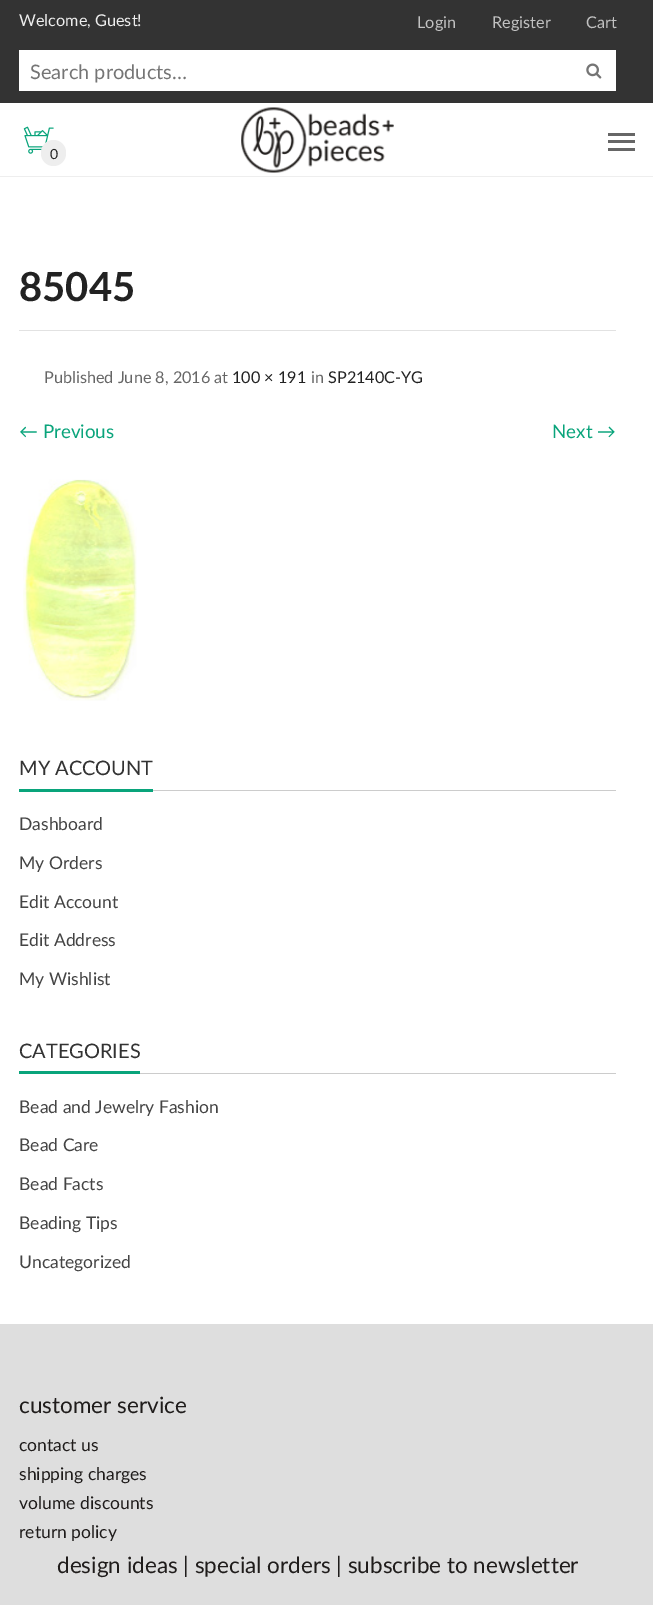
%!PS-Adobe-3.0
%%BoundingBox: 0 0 653 1605
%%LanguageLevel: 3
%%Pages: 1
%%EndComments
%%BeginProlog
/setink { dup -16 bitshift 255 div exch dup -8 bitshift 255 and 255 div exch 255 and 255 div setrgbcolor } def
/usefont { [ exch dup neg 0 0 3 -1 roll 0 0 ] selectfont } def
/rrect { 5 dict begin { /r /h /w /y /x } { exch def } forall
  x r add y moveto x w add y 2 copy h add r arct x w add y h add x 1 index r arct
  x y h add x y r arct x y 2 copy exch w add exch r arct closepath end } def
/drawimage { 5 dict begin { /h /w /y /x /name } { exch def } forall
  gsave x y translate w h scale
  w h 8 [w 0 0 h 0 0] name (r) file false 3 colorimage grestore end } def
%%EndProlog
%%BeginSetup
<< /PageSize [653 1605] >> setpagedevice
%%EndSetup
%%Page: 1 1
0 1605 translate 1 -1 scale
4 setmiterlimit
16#FFFFFF setink
0 0 653 1605 rectfill
16#333333 setink
0 0 653 103 rectfill
/Lato-Regular 16.25 usefont
16#EEEEEE setink
19 26 moveto (Welcome, Guest!) show
16#C2C2C2 setink
[
    [(Login) 417 28]
    [(Register) 492 28]
    [(Cart) 586 28]
] { aload pop moveto show } forall
16#FFFFFF setink
19 50 597 41 rectfill
/Lato-Regular 20 usefont
16#757575 setink
30 79 moveto (Search products…) show
(img1.raw) 586 63 16 16 drawimage
16#EEEEEE setink
0 176 653 1 rectfill
(img2.raw) 23 126 31 28 drawimage
41 140 25 26 12.5 rrect fill
/Lato-Regular 14 usefont
16#222222 setink
50 159 moveto (0) show
(img3.raw) 241 107 153 66 drawimage
[
    [608 133 27 3 16#666666]
    [608 140 27 3 16#666666]
    [608 148 27 3 16#666666]
    [19 330 597 1 16#E2E2E2]
] { aload pop setink rectfill } forall
/Lato-Bold 40 usefont
16#222222 setink
19 301 moveto (85045) show
/Lato-Regular 16.25 usefont
16#666666 setink
44 383 moveto (Published June 8, 2016 at) show
16#222222 setink
232 383 moveto (100 × 191) show
16#666666 setink
311 383 moveto (in) show
16#222222 setink
328 383 moveto (SP2140C-YG) show
/Lato-Regular 18.75 usefont
16#09A47B setink
19 438 moveto (← Previous) show
552 438 moveto (Next →) show
(img4.raw) 23 479 114 222 drawimage
16#CCCCCC setink
153 790 463 1 rectfill
16#09A47B setink
19 789 134 3 rectfill
/Lato-Regular 20 usefont
16#333333 setink
19 775 moveto (MY ACCOUNT) show
/Lato-Regular 17.5 usefont
16#444444 setink
[
    [(Dashboard) 19 830]
    [(My Orders) 19 869]
    [(Edit Account) 19 908]
    [(Edit Address) 19 946]
    [(My Wishlist) 19 985]
] { aload pop moveto show } forall
16#CCCCCC setink
140 1073 476 1 rectfill
16#09A47B setink
19 1071 121 3 rectfill
/Lato-Regular 20 usefont
16#333333 setink
19 1058 moveto (CATEGORIES) show
/Lato-Regular 17.5 usefont
16#444444 setink
[
    [(Bead and Jewelry Fashion) 19 1113]
    [(Bead Care) 19 1151]
    [(Bead Facts) 19 1190]
    [(Beading Tips) 19 1229]
    [(Uncategorized) 19 1268]
] { aload pop moveto show } forall
16#DEDEDE setink
0 1324 653 281 rectfill
/Lato-Regular 22.5 usefont
16#1F1C1B setink
19 1413 moveto (customer service) show
/Lato-Regular 17.5 usefont
[
    [(contact us) 19 1451]
    [(shipping charges) 19 1480]
    [(volume discounts) 19 1509]
    [(return policy) 19 1538]
] { aload pop moveto show } forall
/Lato-Regular 22.5 usefont
57 1573 moveto (design ideas | special orders | subscribe to newsletter) show
showpage
%%EOF
